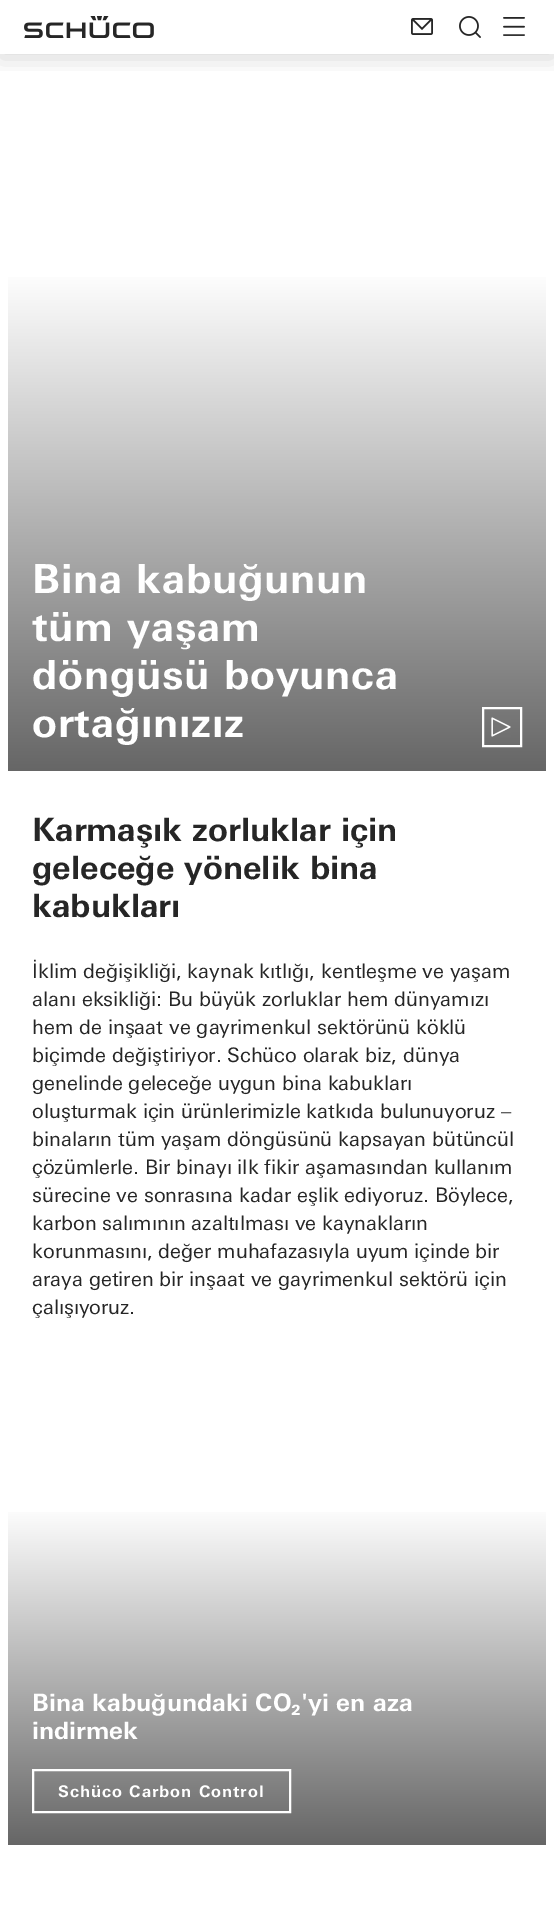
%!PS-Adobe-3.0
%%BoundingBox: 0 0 554 1919
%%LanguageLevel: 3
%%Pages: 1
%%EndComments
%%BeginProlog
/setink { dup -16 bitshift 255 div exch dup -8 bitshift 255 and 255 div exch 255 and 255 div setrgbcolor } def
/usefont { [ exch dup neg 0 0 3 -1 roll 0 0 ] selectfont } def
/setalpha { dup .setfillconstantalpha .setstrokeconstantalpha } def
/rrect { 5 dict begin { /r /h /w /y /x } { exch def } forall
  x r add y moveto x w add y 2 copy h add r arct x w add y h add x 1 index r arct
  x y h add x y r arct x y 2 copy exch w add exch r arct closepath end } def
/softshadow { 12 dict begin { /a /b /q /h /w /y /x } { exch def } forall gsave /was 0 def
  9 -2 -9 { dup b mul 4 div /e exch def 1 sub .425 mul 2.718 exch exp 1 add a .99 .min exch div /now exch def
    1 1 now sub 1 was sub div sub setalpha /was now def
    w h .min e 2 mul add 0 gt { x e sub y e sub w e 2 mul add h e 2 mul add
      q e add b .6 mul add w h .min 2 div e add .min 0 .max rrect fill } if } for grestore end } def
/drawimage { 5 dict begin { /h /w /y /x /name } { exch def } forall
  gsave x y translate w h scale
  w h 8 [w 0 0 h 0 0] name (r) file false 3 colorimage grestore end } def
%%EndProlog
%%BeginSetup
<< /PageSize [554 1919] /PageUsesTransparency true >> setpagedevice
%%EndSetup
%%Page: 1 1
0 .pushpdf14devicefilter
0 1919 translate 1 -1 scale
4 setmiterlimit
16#FFFFFF setink
0 0 554 1919 rectfill
(img1.raw) 24 16 130 22 drawimage
(img2.raw) 411 18 22 17 drawimage
(img3.raw) 459 16 22 22 drawimage
(img4.raw) 503 17 22 19 drawimage
gsave
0 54 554 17 rectclip
16#000000 setink
0 4 554 54 0 12 0.15 softshadow
grestore
gsave 8 277 moveto 546 277 lineto 546 771 lineto 8 771 lineto closepath clip newpath
<< /ShadingType 2 /ColorSpace /DeviceRGB /Coords [277 54 277 771] /Extend [true true] /Function << /FunctionType 3 /Domain [0 1] /Functions [<< /FunctionType 2 /Domain [0 1] /C0 [1 1 1] /C1 [1 1 1] /N 1 >> << /FunctionType 2 /Domain [0 1] /C0 [1 1 1] /C1 [0.4 0.4 0.4] /N 1 >>] /Bounds [0.3] /Encode [0 1 0 1] >> >> shfill grestore
2 setlinewidth
483 708 38 38 rectstroke
(img5.raw) 491 717 20 20 drawimage
/Univers-Bold 40 usefont
32 593 moveto 0.75 0 (Bina kabuğunun) ashow
32 641 moveto 0.75 0 (tüm yaşam) ashow
32 689 moveto 0.75 0 (döngüsü boyunca) ashow
32 737 moveto 0.75 0 (ortağınızız) ashow
/Univers-Bold 32 usefont
16#262626 setink
[
    [(Karmaşık zorluklar için) 32 841]
    [(geleceğe yönelik bina) 32 879]
    [(kabukları) 32 917]
] { aload pop moveto show } forall
/Univers-Regular 20 usefont
[
    [(İklim değişikliği, kaynak kıtlığı, kentleşme ve yaşam) 32 978]
    [(alanı eksikliği: Bu büyük zorluklar hem dünyamızı) 32 1006]
    [(hem de inşaat ve gayrimenkul sektörünü köklü) 32 1034]
    [(biçimde değiştiriyor. Schüco olarak biz, dünya) 32 1062]
    [(genelinde geleceğe uygun bina kabukları) 32 1090]
    [(oluşturmak için ürünlerimizle katkıda bulunuyoruz –) 32 1118]
    [(binaların tüm yaşam döngüsünü kapsayan bütüncül) 32 1146]
    [(çözümlerle. Bir binayı ilk fikir aşamasından kullanım) 32 1174]
    [(sürecine ve sonrasına kadar eşlik ediyoruz. Böylece,) 32 1202]
    [(karbon salımının azaltılması ve kaynakların) 32 1230]
    [(korunmasını, değer muhafazasıyla uyum içinde bir) 32 1258]
    [(araya getiren bir inşaat ve gayrimenkul sektörü için) 32 1286]
    [(çalışıyoruz.) 32 1314]
] { aload pop moveto show } forall
gsave 8 1512 moveto 546 1512 lineto 546 1845 lineto 8 1845 lineto closepath clip newpath
<< /ShadingType 2 /ColorSpace /DeviceRGB /Coords [277 1361 277 1845] /Extend [true true] /Function << /FunctionType 3 /Domain [0 1] /Functions [<< /FunctionType 2 /Domain [0 1] /C0 [1 1 1] /C1 [1 1 1] /N 1 >> << /FunctionType 2 /Domain [0 1] /C0 [1 1 1] /C1 [0.4 0.4 0.4] /N 1 >>] /Bounds [0.3] /Encode [0 1 0 1] >> >> shfill grestore
/Univers-Bold 24 usefont
16#FFFFFF setink
32 1711 moveto (Bina kabuğundaki CO₂'yi en aza) show
32 1739 moveto (indirmek) show
33 1770 257 42 rectstroke
/Univers-Bold 16 usefont
58 1797 moveto 1 0 (Schüco Carbon Control) ashow
.poppdf14devicefilter showpage
%%EOF
